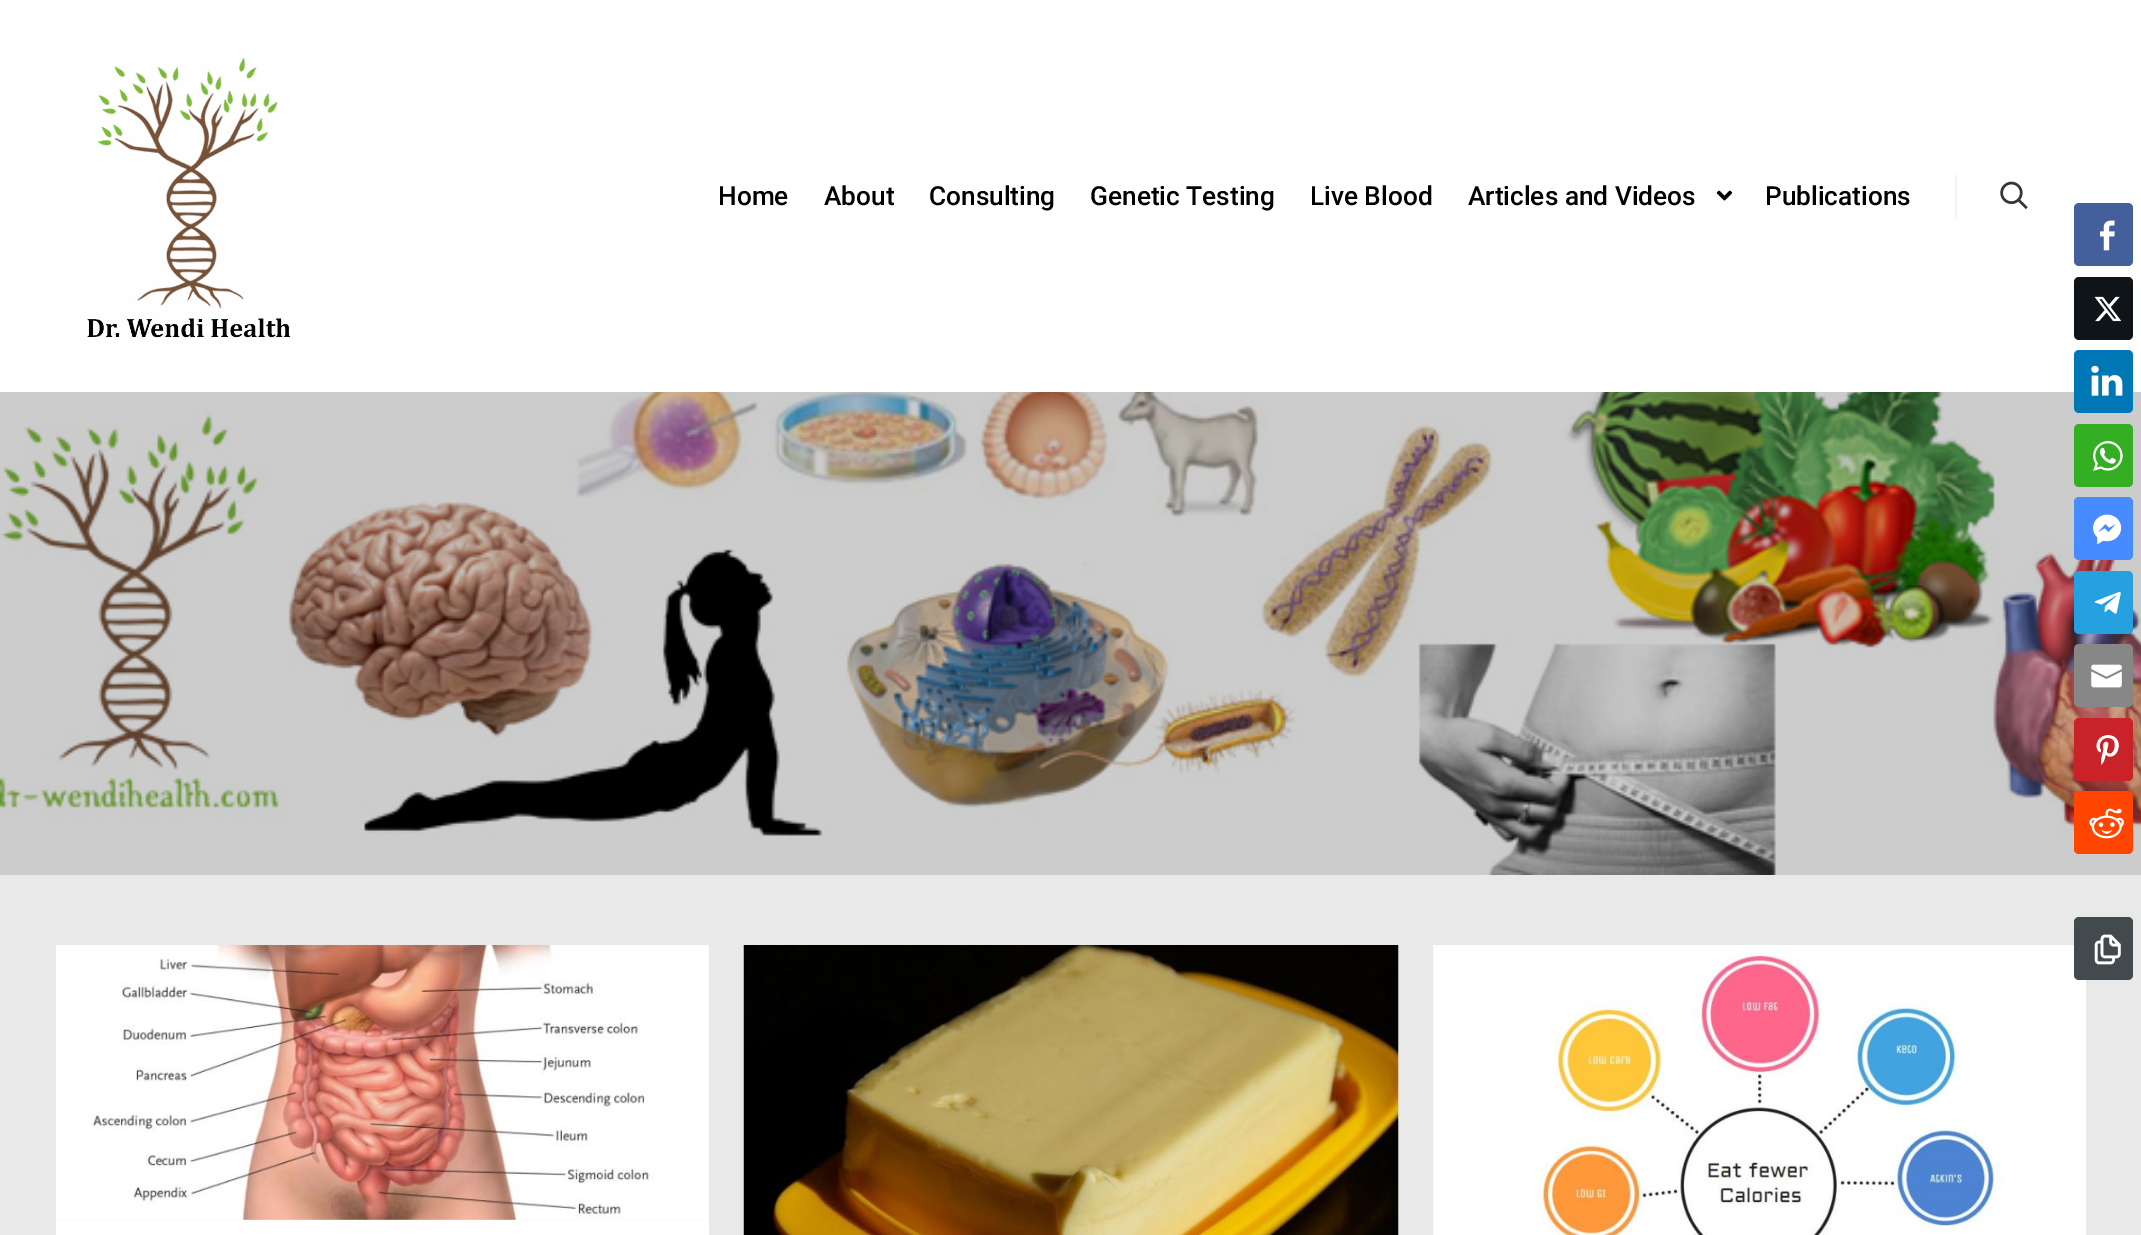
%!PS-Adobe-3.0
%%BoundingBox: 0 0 2141 1235
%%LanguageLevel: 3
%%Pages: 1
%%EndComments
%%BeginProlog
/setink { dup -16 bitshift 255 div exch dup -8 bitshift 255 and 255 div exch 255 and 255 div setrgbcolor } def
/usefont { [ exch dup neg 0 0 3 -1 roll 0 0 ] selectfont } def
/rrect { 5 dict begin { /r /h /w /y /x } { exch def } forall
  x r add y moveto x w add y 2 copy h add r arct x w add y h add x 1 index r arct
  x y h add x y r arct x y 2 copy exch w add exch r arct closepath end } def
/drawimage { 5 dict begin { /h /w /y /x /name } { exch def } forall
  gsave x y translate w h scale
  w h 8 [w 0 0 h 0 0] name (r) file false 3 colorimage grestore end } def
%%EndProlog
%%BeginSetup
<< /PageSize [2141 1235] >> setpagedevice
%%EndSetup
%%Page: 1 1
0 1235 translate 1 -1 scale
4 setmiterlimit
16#E9E9E9 setink
0 0 2141 1235 rectfill
16#FFFFFF setink
0 0 2141 392 rectfill
(img1.raw) 87 57 204 281 drawimage
/Roboto-Medium 26.25 usefont
16#000000 setink
[
    [(Home) 718 205]
    [(About) 824 205]
    [(Consulting) 929 205]
    [(Genetic Testing) 1090 205]
    [(Live Blood) 1310 205]
    [(Articles and Videos) 1468 205]
] { aload pop moveto show } forall
(img2.raw) 1716 190 17 11 drawimage
1765 205 moveto (Publications) show
16#F3F3F3 setink
1955 175 2 44 rectfill
(img3.raw) 2000 181 28 29 drawimage
(img4.raw) 0 392 2141 483 drawimage
(img5.raw) 56 945 653 275 drawimage
16#FFFFFF setink
56 1220 653 15 rectfill
(img6.raw) 743 945 656 290 drawimage
(img7.raw) 1433 945 653 290 drawimage
16#43609C setink
2074 203 59 63 5 rrect fill
(img8.raw) 2100 220 15 31 drawimage
16#0F1419 setink
2074 277 59 63 5 rrect fill
(img9.raw) 2094 296 28 26 drawimage
16#0077B5 setink
2074 350 59 63 5 rrect fill
(img10.raw) 2091 365 32 31 drawimage
16#34AF23 setink
2074 424 59 63 5 rrect fill
(img11.raw) 2093 441 30 30 drawimage
16#468BFF setink
2074 497 59 63 5 rrect fill
(img12.raw) 2093 514 29 31 drawimage
16#24A1DE setink
2074 571 59 63 5 rrect fill
(img13.raw) 2094 591 27 23 drawimage
16#878787 setink
2074 644 59 63 5 rrect fill
(img14.raw) 2091 664 31 24 drawimage
16#C92228 setink
2074 718 59 63 5 rrect fill
(img15.raw) 2096 735 23 30 drawimage
16#FF4500 setink
2074 791 59 63 5 rrect fill
(img16.raw) 2089 808 35 31 drawimage
16#434A4D setink
2074 917 59 63 5 rrect fill
(img17.raw) 2094 934 27 31 drawimage
showpage
%%EOF
